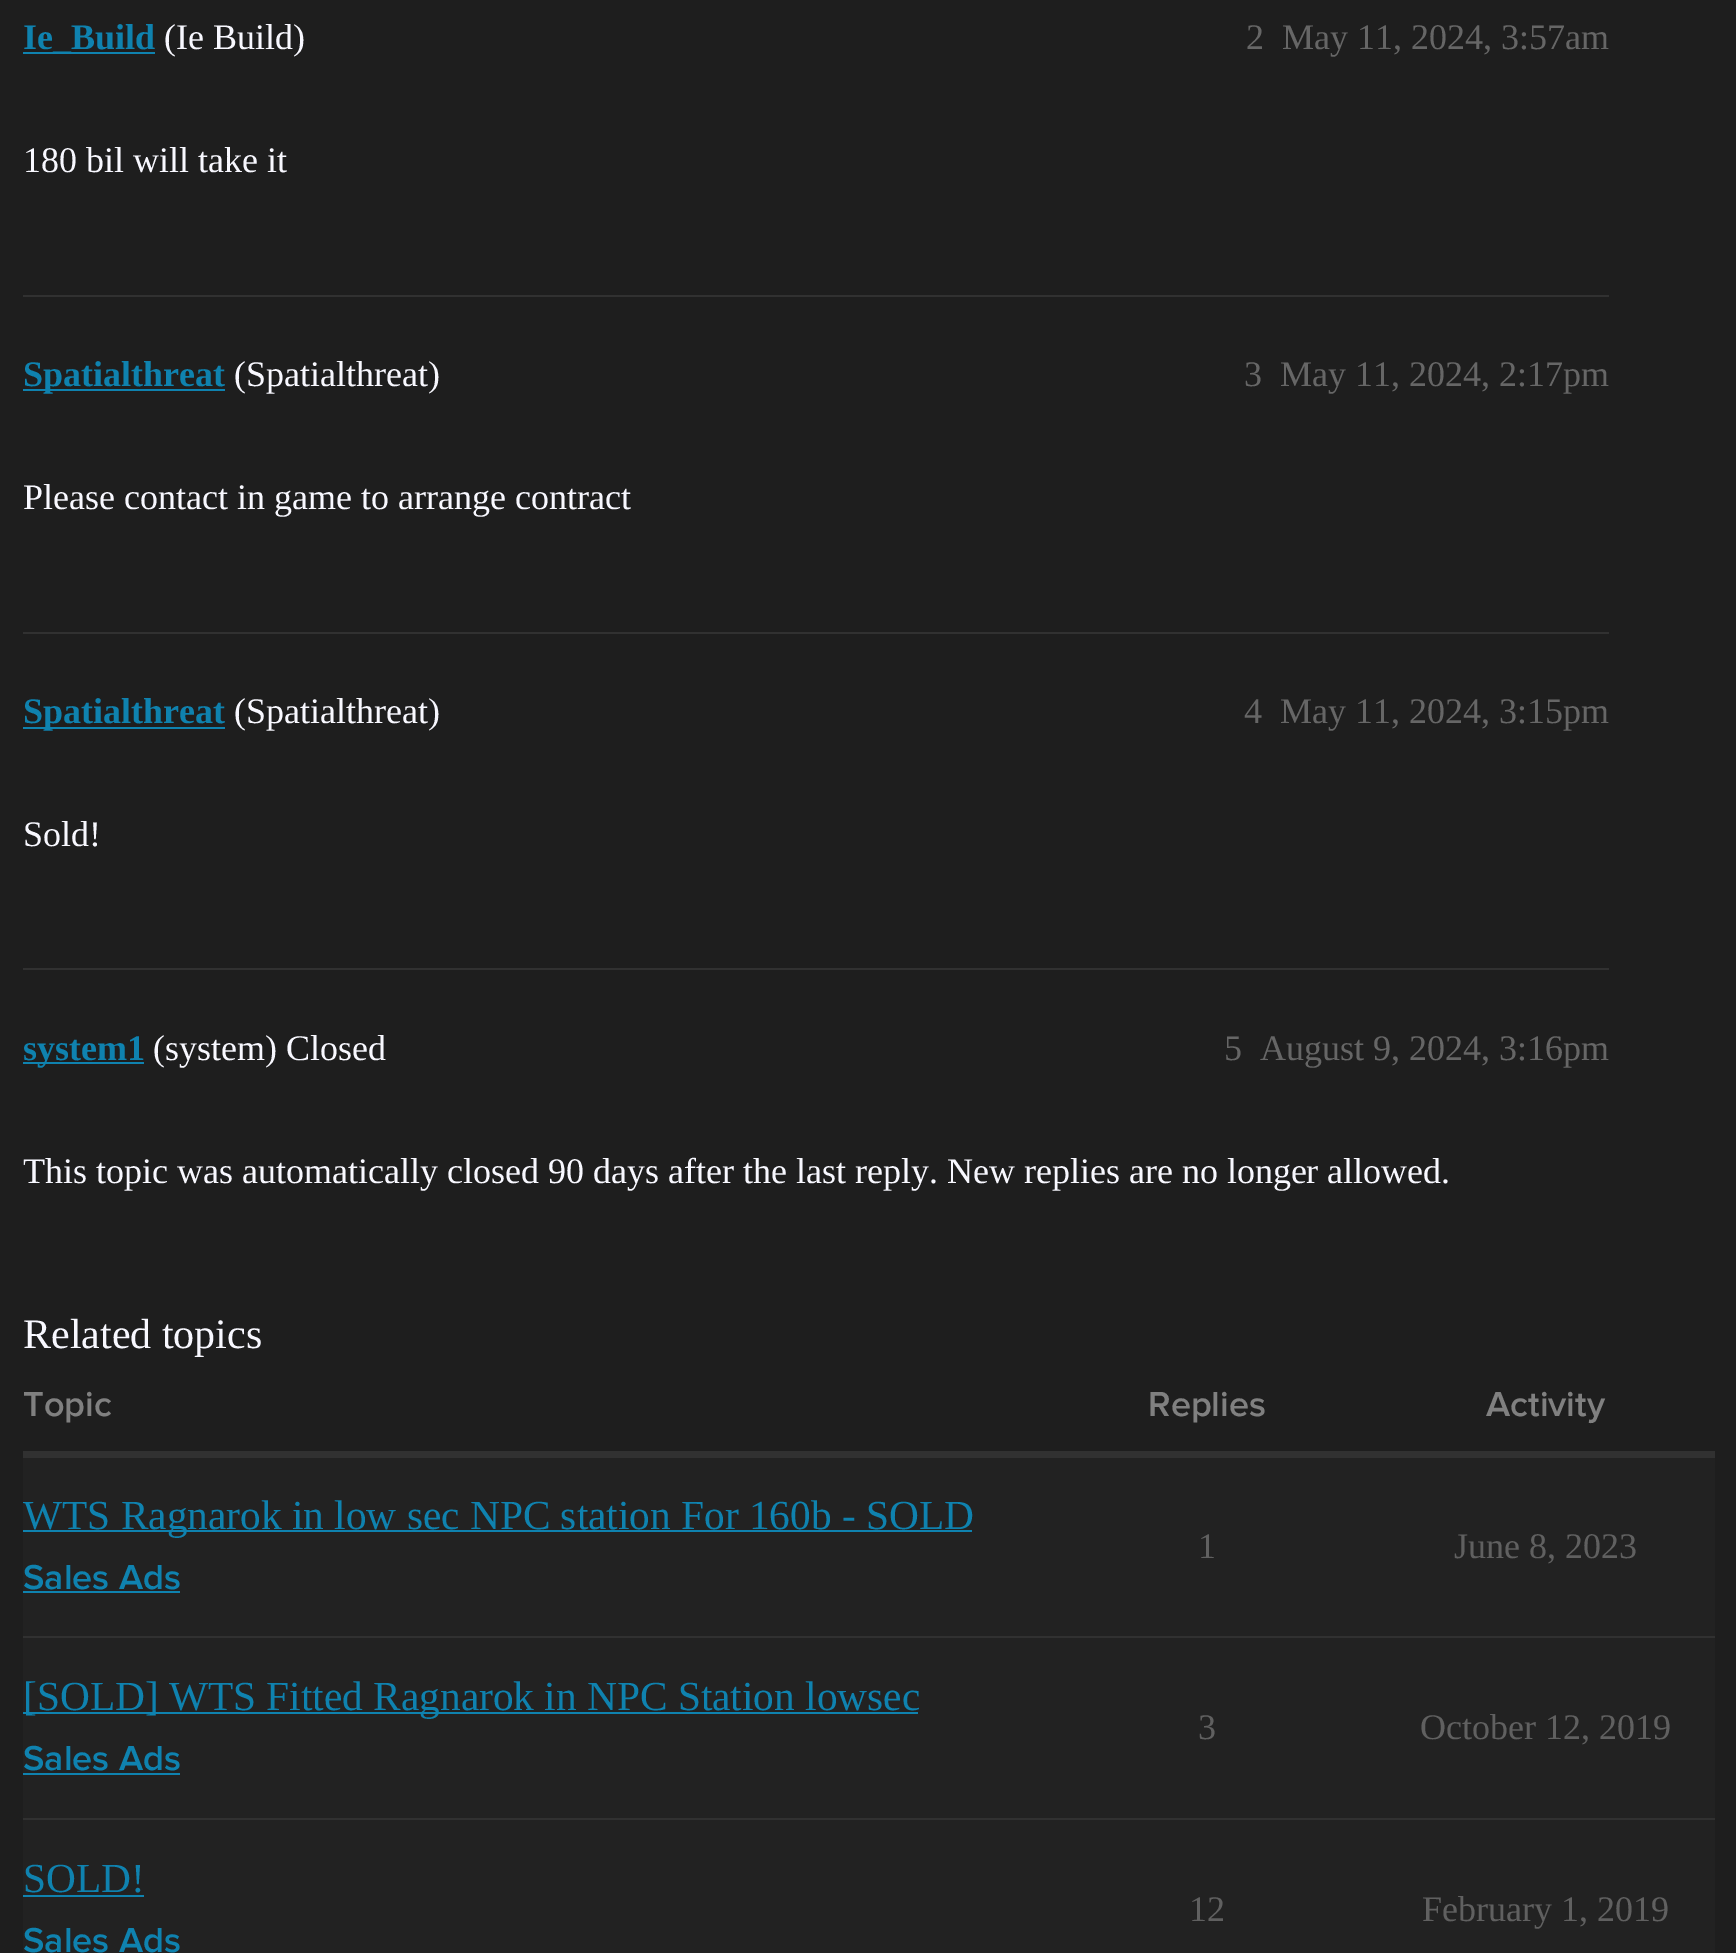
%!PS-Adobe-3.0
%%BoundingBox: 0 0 1736 1953
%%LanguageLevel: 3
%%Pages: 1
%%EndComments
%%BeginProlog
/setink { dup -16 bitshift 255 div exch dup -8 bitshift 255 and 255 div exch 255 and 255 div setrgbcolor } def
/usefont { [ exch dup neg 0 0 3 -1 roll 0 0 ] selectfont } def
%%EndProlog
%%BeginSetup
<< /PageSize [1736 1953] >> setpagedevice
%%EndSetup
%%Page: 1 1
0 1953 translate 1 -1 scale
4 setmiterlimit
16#1E1E1E setink
0 0 1736 1953 rectfill
16#0F82AF setink
23 52 132 2 rectfill
/LiberationSerif-Bold 36 usefont
23 49 moveto (Ie_Build) show
/LiberationSerif-Regular 36 usefont
16#F8F8FF setink
164 49 moveto (\(Ie Build\)) show
16#666666 setink
1246 49 moveto (2) show
1282 49 moveto (May 11, 2024, 3:57am) show
16#F8F8FF setink
23 172 moveto (180 bil will take it) show
16#313131 setink
23 295 1586 2 rectfill
16#0F82AF setink
23 389 202 2 rectfill
/LiberationSerif-Bold 36 usefont
23 386 moveto (Spatialthreat) show
/LiberationSerif-Regular 36 usefont
16#F8F8FF setink
234 386 moveto (\(Spatialthreat\)) show
16#666666 setink
1244 386 moveto (3) show
1280 386 moveto (May 11, 2024, 2:17pm) show
16#F8F8FF setink
23 509 moveto (Please contact in game to arrange contract) show
16#313131 setink
23 632 1586 2 rectfill
16#0F82AF setink
23 727 202 2 rectfill
/LiberationSerif-Bold 36 usefont
23 723 moveto (Spatialthreat) show
/LiberationSerif-Regular 36 usefont
16#F8F8FF setink
234 723 moveto (\(Spatialthreat\)) show
16#666666 setink
1244 723 moveto (4) show
1280 723 moveto (May 11, 2024, 3:15pm) show
16#F8F8FF setink
23 846 moveto (Sold!) show
16#313131 setink
23 968 1586 2 rectfill
16#0F82AF setink
23 1062 121 2 rectfill
/LiberationSerif-Bold 36 usefont
23 1060 moveto (system1) show
/LiberationSerif-Regular 36 usefont
16#F8F8FF setink
153 1060 moveto (\(system\) Closed) show
16#666666 setink
1224 1060 moveto (5) show
1260 1060 moveto (August 9, 2024, 3:16pm) show
16#F8F8FF setink
23 1183 moveto (This topic was automatically closed 90 days after the last reply. New replies are no longer allowed.) show
/LiberationSerif-Regular 42 usefont
23 1348 moveto (Related topics) show
/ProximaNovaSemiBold-SemiBold 36 usefont
16#808080 setink
[
    [(Topic) 23 1416]
    [(Replies) 1148 1416]
    [(Activity) 1486 1416]
] { aload pop moveto show } forall
[
    [23 1451 1692 7 16#313131]
    [23 1458 1692 178 16#222222]
    [23 1636 1692 2 16#313131]
    [23 1530 949 2 16#0F82AF]
] { aload pop setink rectfill } forall
/LiberationSerif-Regular 41.35 usefont
23 1529 moveto (WTS Ragnarok in low sec NPC station For 160b - SOLD) show
/ProximaNovaSemiBold-SemiBold 36 usefont
23 1589 moveto (Sales Ads) show
23 1591 157 2 rectfill
/LiberationSerif-Regular 36 usefont
16#606060 setink
1198 1558 moveto (1) show
1454 1558 moveto (June 8, 2023) show
[
    [23 1638 1692 180 16#222222]
    [23 1818 1692 2 16#313131]
    [23 1712 895 2 16#0F82AF]
] { aload pop setink rectfill } forall
/LiberationSerif-Regular 41.35 usefont
23 1710 moveto ([SOLD] WTS Fitted Ragnarok in NPC Station lowsec) show
/ProximaNovaSemiBold-SemiBold 36 usefont
23 1770 moveto (Sales Ads) show
23 1773 157 2 rectfill
/LiberationSerif-Regular 36 usefont
16#606060 setink
1198 1739 moveto (3) show
1420 1739 moveto (October 12, 2019) show
16#222222 setink
23 1820 1692 133 rectfill
/LiberationSerif-Regular 41.35 usefont
16#0F82AF setink
23 1892 moveto (SOLD!) show
23 1895 121 2 rectfill
/ProximaNovaSemiBold-SemiBold 36 usefont
23 1952 moveto (Sales Ads) show
/LiberationSerif-Regular 36 usefont
16#606060 setink
1189 1921 moveto (12) show
1422 1921 moveto (February 1, 2019) show
showpage
%%EOF
